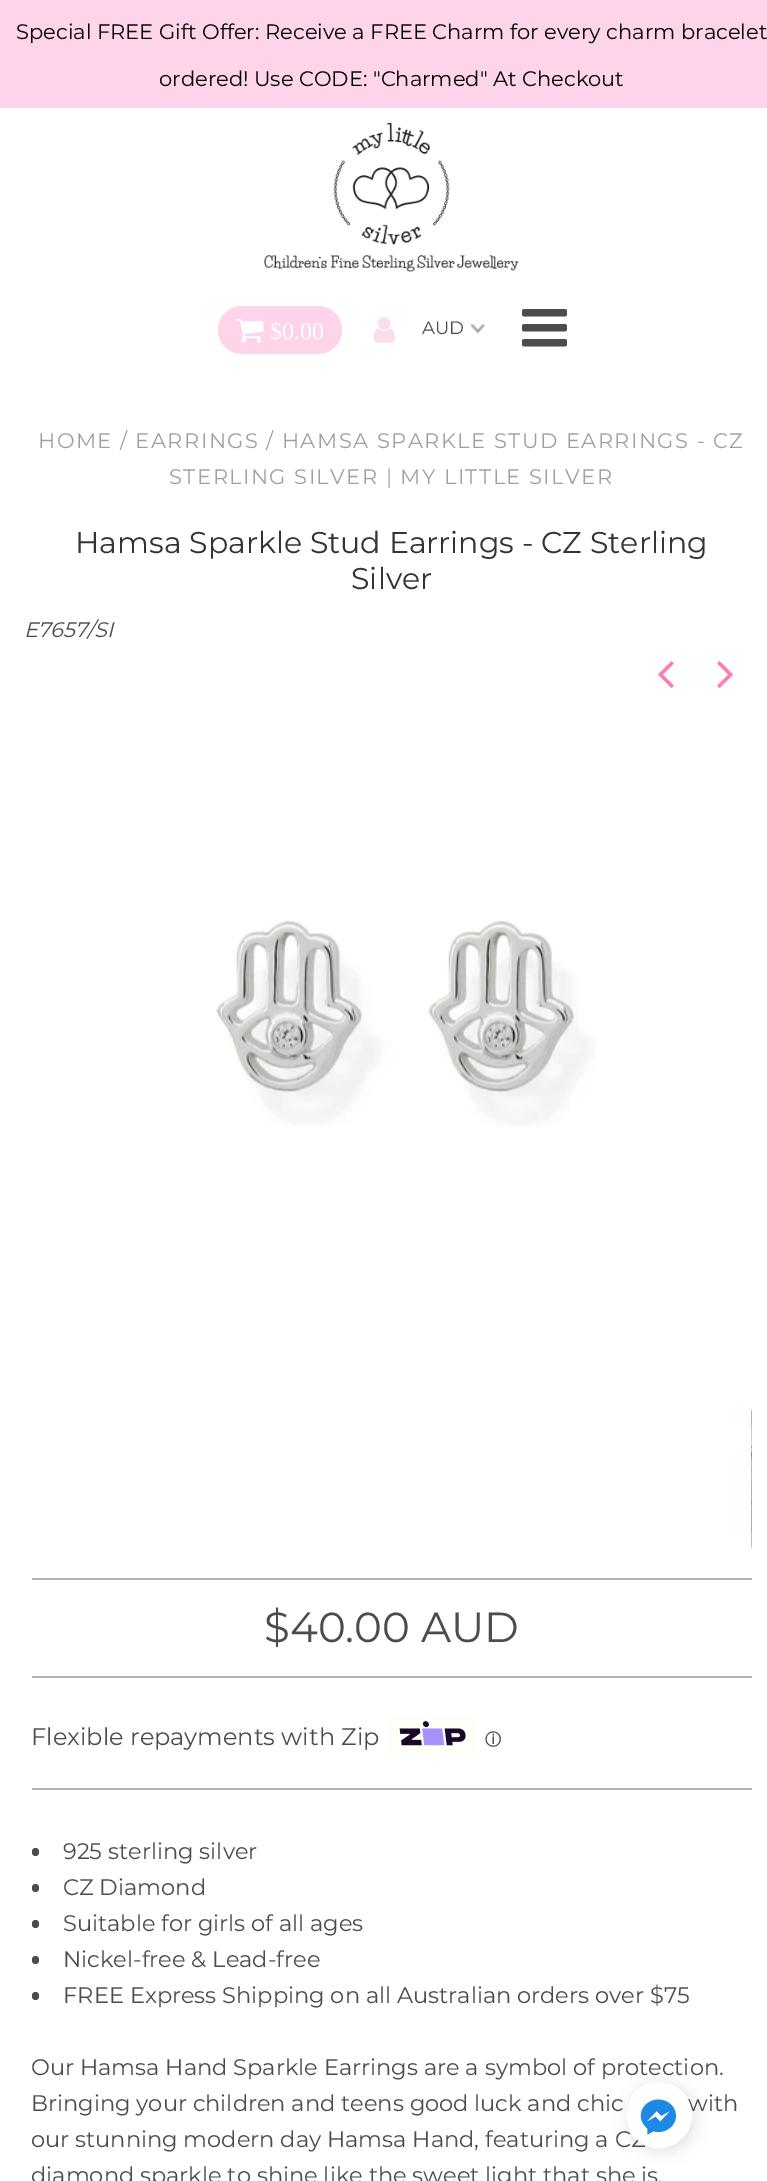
%!PS-Adobe-3.0
%%BoundingBox: 0 0 767 2181
%%LanguageLevel: 3
%%Pages: 1
%%EndComments
%%BeginProlog
/setink { dup -16 bitshift 255 div exch dup -8 bitshift 255 and 255 div exch 255 and 255 div setrgbcolor } def
/usefont { [ exch dup neg 0 0 3 -1 roll 0 0 ] selectfont } def
/setalpha { dup .setfillconstantalpha .setstrokeconstantalpha } def
/rrect { 5 dict begin { /r /h /w /y /x } { exch def } forall
  x r add y moveto x w add y 2 copy h add r arct x w add y h add x 1 index r arct
  x y h add x y r arct x y 2 copy exch w add exch r arct closepath end } def
/softshadow { 12 dict begin { /a /b /q /h /w /y /x } { exch def } forall gsave /was 0 def
  9 -2 -9 { dup b mul 4 div /e exch def 1 sub .425 mul 2.718 exch exp 1 add a .99 .min exch div /now exch def
    1 1 now sub 1 was sub div sub setalpha /was now def
    w h .min e 2 mul add 0 gt { x e sub y e sub w e 2 mul add h e 2 mul add
      q e add b .6 mul add w h .min 2 div e add .min 0 .max rrect fill } if } for grestore end } def
/drawimage { 5 dict begin { /h /w /y /x /name } { exch def } forall
  gsave x y translate w h scale
  w h 8 [w 0 0 h 0 0] name (r) file false 3 colorimage grestore end } def
%%EndProlog
%%BeginSetup
<< /PageSize [767 2181] /PageUsesTransparency true >> setpagedevice
%%EndSetup
%%Page: 1 1
0 .pushpdf14devicefilter
0 2181 translate 1 -1 scale
4 setmiterlimit
16#FFFFFF setink
0 0 767 2181 rectfill
16#FDD4EA setink
0 0 767 108 rectfill
/Montserrat-Regular 21 usefont
16#000000 setink
16 39 moveto (Special FREE Gift Offer: Receive a FREE Charm for every charm bracelet) show
159 86 moveto (ordered! Use CODE: "Charmed" At Checkout) show
(img1.raw) 264 123 255 149 drawimage
16#FDD4EA setink
218 306 124 48 24 rrect fill
(img2.raw) 235 319 29 24 drawimage
/LiberationSerif-Regular 24 usefont
16#FFFFFF setink
270 339 moveto ($0.00) show
(img3.raw) 373 317 22 26 drawimage
(img4.raw) 470 323 15 11 drawimage
/Montserrat-Regular 18 usefont
16#4C4C4C setink
422 334 moveto (AUD) show
(img5.raw) 522 309 45 38 drawimage
/Montserrat-Regular 21 usefont
16#A0A0A0 setink
38 448 moveto 1.5 0 (HOME / EARRINGS / HAMSA SPARKLE STUD EARRINGS - CZ) ashow
169 484 moveto 1.5 0 (STERLING SILVER | MY LITTLE SILVER) ashow
/Montserrat-Regular 30 usefont
16#333333 setink
75 553 moveto (Hamsa Sparkle Stud Earrings - CZ Sterling) show
351 589 moveto (Silver) show
/Montserrat-Italic 21 usefont
16#4C4C4C setink
24 637 moveto (E7657/SI) show
(img6.raw) 658 661 16 27 drawimage
(img7.raw) 717 661 16 27 drawimage
(img8.raw) 216 920 380 206 drawimage
(img9.raw) 751 1405 1 143 drawimage
[
    [32 1578 720 2 16#B6B2B2]
    [32 1788 720 2 16#B6B2B2]
    [32 1676 720 2 16#B6B2B2]
] { aload pop setink rectfill } forall
/Montserrat-Regular 42 usefont
16#4C4C4C setink
264 1642 moveto ($40.00 AUD) show
/Montserrat-Regular 24 usefont
31 1745 moveto (Flexible repayments with Zip) show
(img10.raw) 387 1715 90 40 drawimage
/WenQuanYiZenHei-Bold 16 usefont
485 1745 moveto 1.5 0 (ⓘ) ashow
32 1848 7 8 3.5 rrect fill
/Montserrat-Regular 22.5 usefont
63 1859 moveto (925 sterling silver) show
32 1884 7 8 3.5 rrect fill
63 1895 moveto (CZ Diamond) show
32 1920 7 8 3.5 rrect fill
63 1931 moveto (Suitable for girls of all ages) show
32 1956 7 8 3.5 rrect fill
63 1967 moveto (Nickel-free & Lead-free) show
32 1992 7 8 3.5 rrect fill
[
    [(FREE Express Shipping on all Australian orders over $75) 63 2003]
    [(Our Hamsa Hand Sparkle Earrings are a symbol of protection.) 31 2075]
    [(Bringing your children and teens good luck and chic) 31 2111]
    [(with) 688 2111]
    [(our stunning modern day Hamsa Hand, featuring a C) 31 2147]
    [(diamond sparkle to shine like the sweet light that she is.) 31 2183]
] { aload pop moveto show } forall
gsave
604 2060 moveto 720 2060 lineto 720 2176 lineto 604 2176 lineto closepath 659 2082 moveto 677 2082 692 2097 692 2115 curveto 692 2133 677 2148 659 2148 curveto 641 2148 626 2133 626 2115 curveto 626 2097 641 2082 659 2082 curveto closepath eoclip newpath
16#000000 setink
626 2082 72 72 36 7 0.07 softshadow
grestore
(img11.raw) 630 2083 62 65 drawimage
.poppdf14devicefilter showpage
%%EOF
